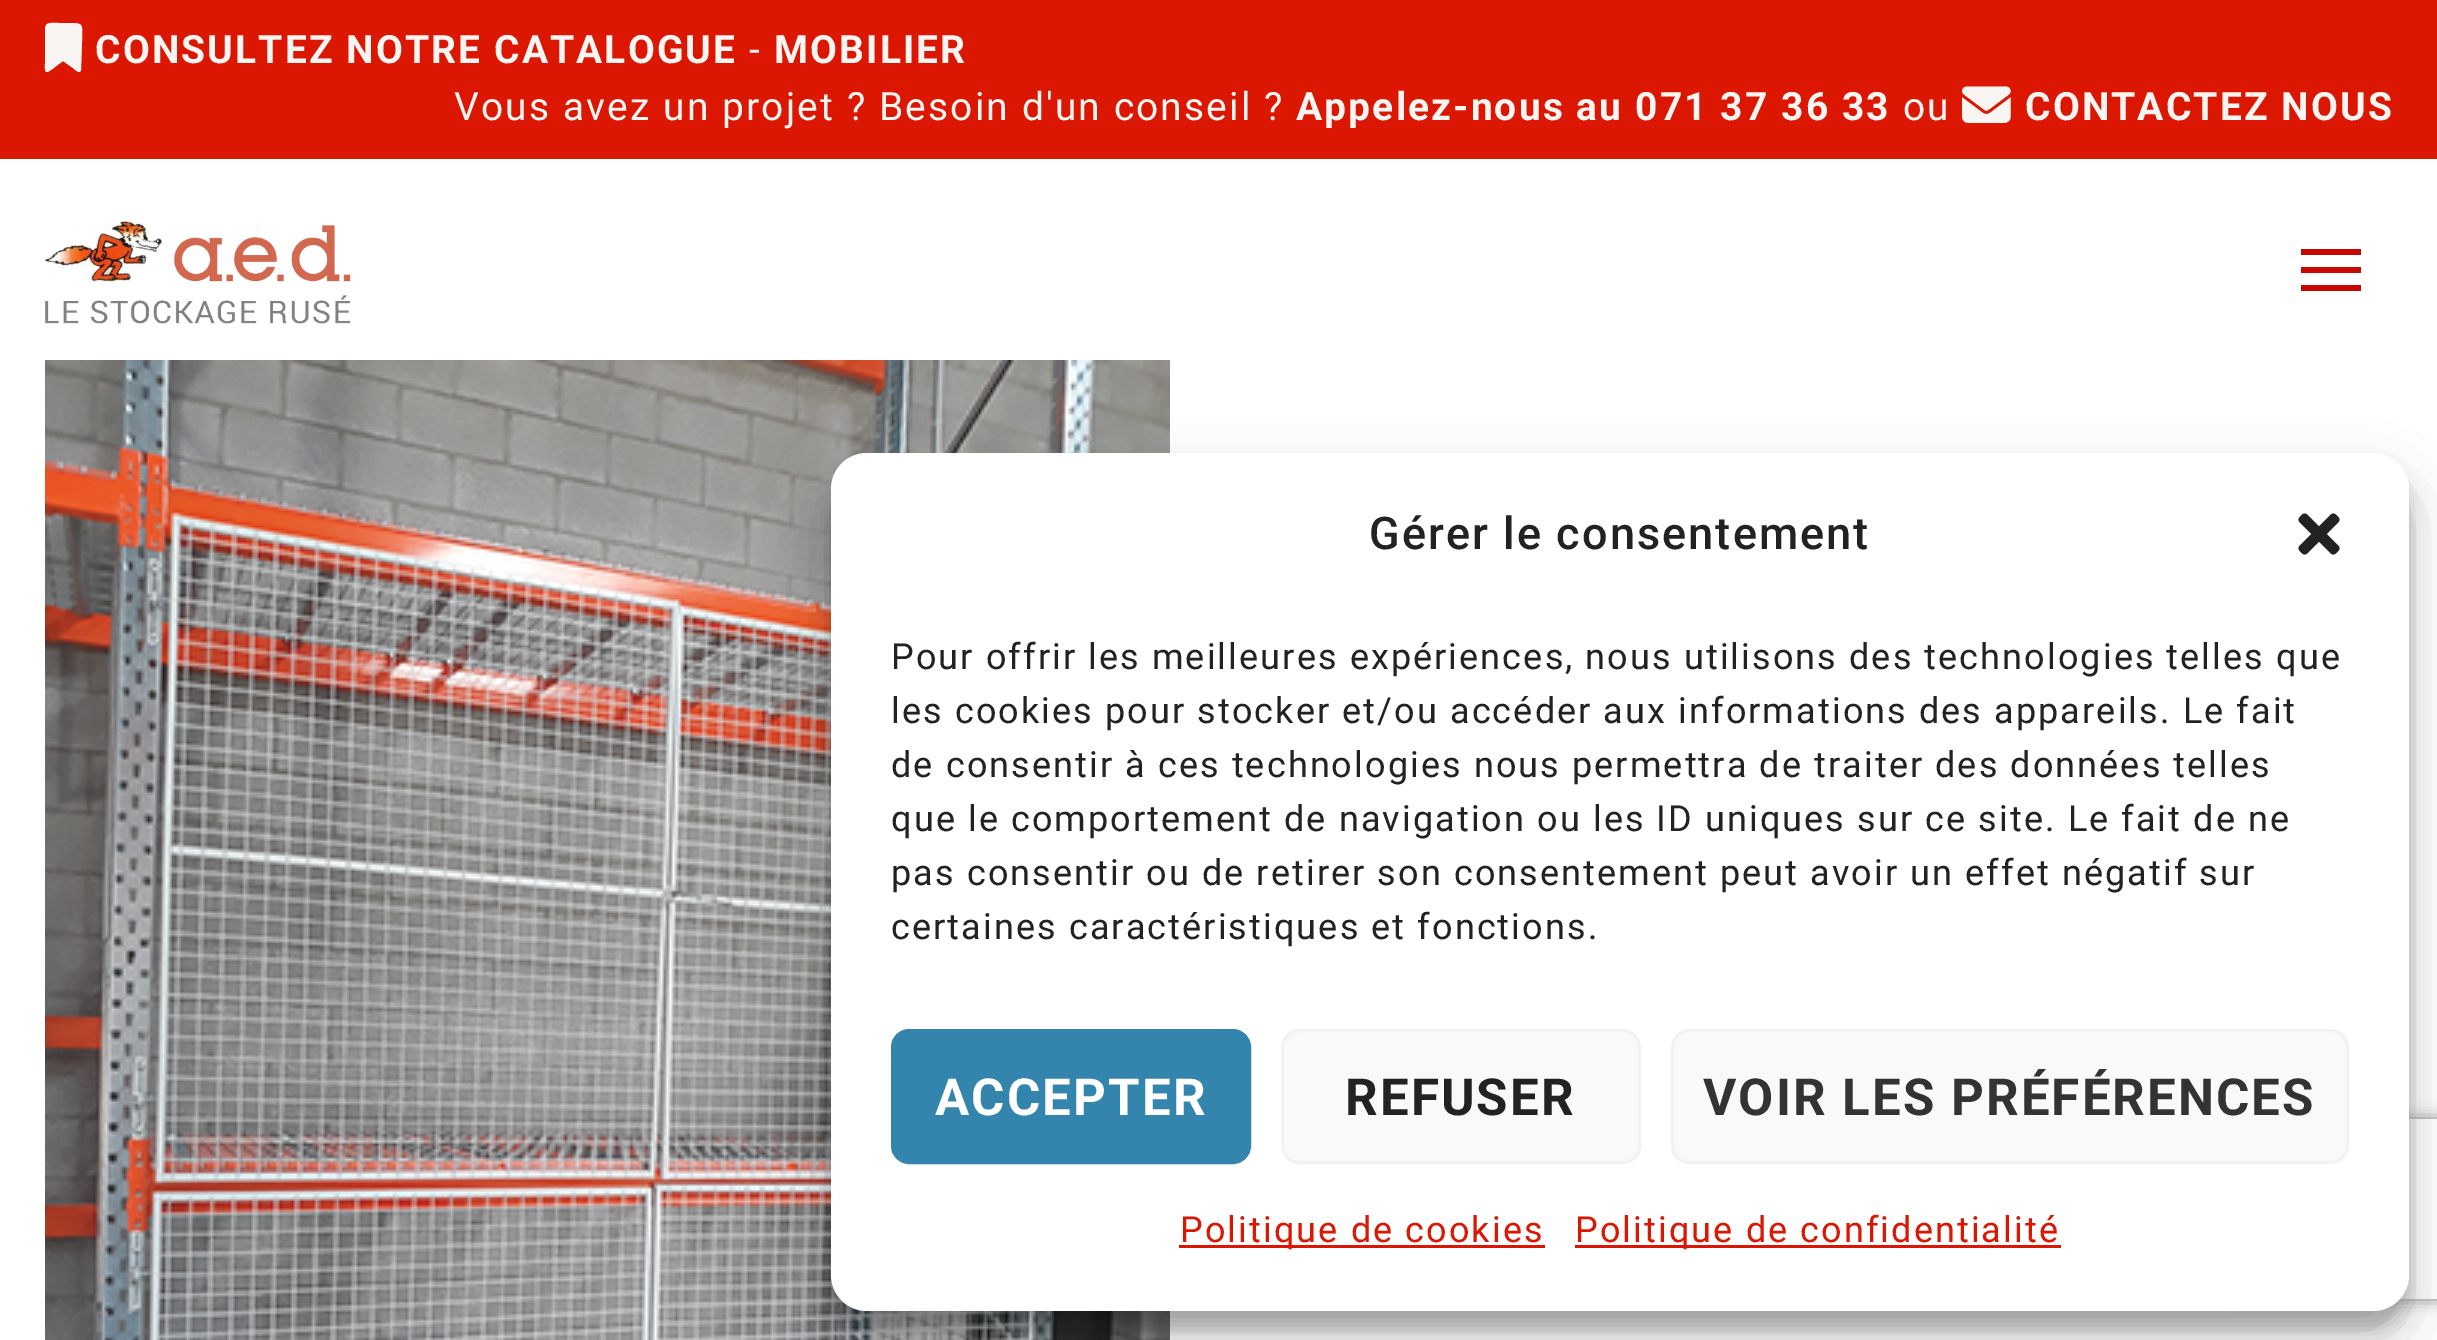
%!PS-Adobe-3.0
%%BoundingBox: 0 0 2437 1340
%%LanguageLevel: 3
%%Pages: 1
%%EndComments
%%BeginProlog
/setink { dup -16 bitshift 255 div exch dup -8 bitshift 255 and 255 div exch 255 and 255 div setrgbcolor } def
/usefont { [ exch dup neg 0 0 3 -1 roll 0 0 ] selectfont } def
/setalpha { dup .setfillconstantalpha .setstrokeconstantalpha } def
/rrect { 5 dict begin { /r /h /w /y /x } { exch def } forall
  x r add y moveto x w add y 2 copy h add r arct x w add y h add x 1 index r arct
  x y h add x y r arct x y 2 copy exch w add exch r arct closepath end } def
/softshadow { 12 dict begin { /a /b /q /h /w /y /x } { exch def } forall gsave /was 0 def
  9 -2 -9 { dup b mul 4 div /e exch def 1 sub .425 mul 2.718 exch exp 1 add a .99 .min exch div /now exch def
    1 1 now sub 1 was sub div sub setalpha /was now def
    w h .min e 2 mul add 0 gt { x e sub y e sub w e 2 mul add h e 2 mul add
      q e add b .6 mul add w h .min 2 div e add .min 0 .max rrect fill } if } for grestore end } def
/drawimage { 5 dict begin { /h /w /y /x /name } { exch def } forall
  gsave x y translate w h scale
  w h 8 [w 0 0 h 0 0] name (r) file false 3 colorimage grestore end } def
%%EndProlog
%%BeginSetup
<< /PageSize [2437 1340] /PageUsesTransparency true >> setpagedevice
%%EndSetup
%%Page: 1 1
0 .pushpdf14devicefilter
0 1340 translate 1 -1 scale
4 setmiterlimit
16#FFFFFF setink
0 0 2437 1340 rectfill
16#DB1702 setink
0 0 2437 159 rectfill
16#F9F5F2 setink
45 28 moveto 45 63 lineto 45 70 44 75 51 70 curveto 63 61 lineto 73 68 lineto 74 69 80 75 81 70 curveto 82 42 lineto 82 24 85 23 68 23 curveto 59 23 lineto 56 23 48 22 46 25 curveto closepath fill
/Roboto-Bold 39 usefont
95 63 moveto 2.1 0 (CONSULTEZ NOTRE CATALOGUE) ashow
/Roboto-Regular 39 usefont
749 63 moveto 2.1 0 (-) ashow
/Roboto-Bold 39 usefont
774 63 moveto 2.1 0 (MOBILIER) ashow
/Roboto-Regular 39 usefont
454 120 moveto 2.1 0 (Vous avez un projet ? Besoin d'un conseil ?) ashow
/Roboto-Bold 39 usefont
1296 120 moveto 2.1 0 (Appelez-nous au 071 37 36 33) ashow
/Roboto-Regular 39 usefont
1903 120 moveto 2.1 0 (ou) ashow
(img1.raw) 1962 86 49 37 drawimage
/Roboto-Bold 39 usefont
2025 120 moveto 2.1 0 (CONTACTEZ NOUS) ashow
(img2.raw) 45 221 306 103 drawimage
16#C60800 setink
2301 267 moveto 2361 267 lineto 2361 273 lineto 2301 273 lineto closepath 2301 249 moveto 2361 249 lineto 2361 255 lineto 2301 255 lineto closepath 2301 285 moveto 2361 285 lineto 2361 291 lineto 2301 291 lineto closepath fill
(img3.raw) 45 360 1125 980 drawimage
16#000000 setink
831 471 1578 858 36 9 0.23 softshadow
831 483 1578 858 36 30 0.19 softshadow
gsave
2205 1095 moveto 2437 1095 lineto 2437 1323 lineto 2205 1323 lineto closepath 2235 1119 moveto 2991 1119 lineto 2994.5 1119 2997 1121.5 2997 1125 curveto 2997 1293 lineto 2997 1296.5 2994.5 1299 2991 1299 curveto 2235 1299 lineto 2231.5 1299 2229 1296.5 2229 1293 curveto 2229 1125 lineto 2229 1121.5 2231.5 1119 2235 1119 curveto closepath eoclip newpath
16#808080 setink
2229 1119 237 180 6 7.5 1 softshadow
grestore
16#FFFFFF setink
831 453 1578 858 36 rrect fill
/Roboto-Medium 45 usefont
16#222222 setink
1369 549 moveto 2.1 0 (Gérer le consentement) ashow
(img4.raw) 2298 513 42 42 drawimage
/Roboto-Regular 36 usefont
891 669 moveto 2.1 0 (Pour offrir les meilleures expériences, nous utilisons des technologies telles que) ashow
891 723 moveto 2.1 0 (les cookies pour stocker et/ou accéder aux informations des appareils. Le fait) ashow
891 777 moveto 2.1 0 (de consentir à ces technologies nous permettra de traiter des données telles) ashow
891 831 moveto 2.1 0 (que le comportement de navigation ou les ID uniques sur ce site. Le fait de ne) ashow
891 885 moveto 2.1 0 (pas consentir ou de retirer son consentement peut avoir un effet négatif sur) ashow
891 939 moveto 2.1 0 (certaines caractéristiques et fonctions.) ashow
16#3385AD setink
892.5 1030.5 357 132 16.5 rrect gsave fill grestore
3 setlinewidth
stroke
/Roboto-Bold 51 usefont
16#FFFFFF setink
935 1115 moveto 2.1 0 (ACCEPTER) ashow
16#F9F9F9 setink
1282.5 1030.5 357 132 16.5 rrect gsave fill grestore
16#F2F2F2 setink
stroke
16#222222 setink
1345 1115 moveto 2.1 0 (REFUSER) ashow
16#F9F9F9 setink
1672.5 1030.5 675 132 16.5 rrect gsave fill grestore
16#F2F2F2 setink
stroke
16#333333 setink
1703 1115 moveto 2.1 0 (VOIR LES PRÉFÉRENCES) ashow
16#DB1703 setink
1179 1245 366 3 rectfill
/Roboto-Regular 36 usefont
1180 1242 moveto 2.1 0 (Politique de cookies) ashow
1575 1245 486 3 rectfill
1575 1242 moveto 2.1 0 (Politique de confidentialité) ashow
.poppdf14devicefilter showpage
%%EOF
